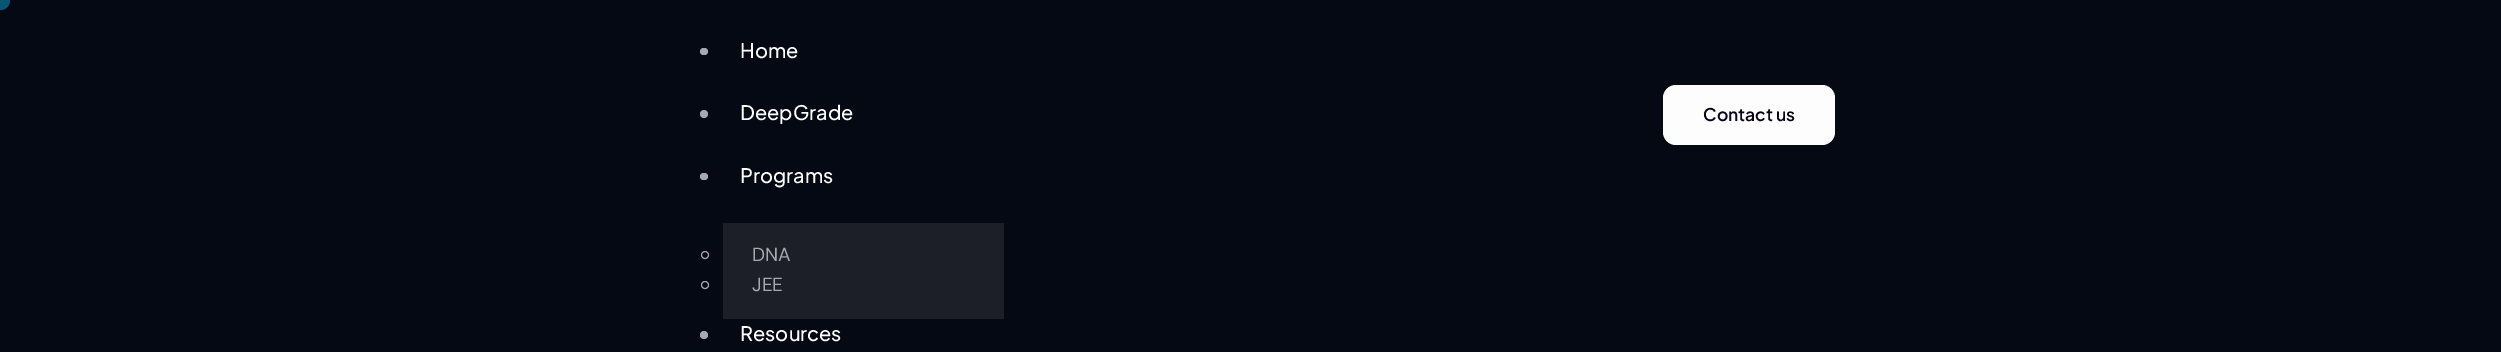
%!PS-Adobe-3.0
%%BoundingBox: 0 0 2501 352
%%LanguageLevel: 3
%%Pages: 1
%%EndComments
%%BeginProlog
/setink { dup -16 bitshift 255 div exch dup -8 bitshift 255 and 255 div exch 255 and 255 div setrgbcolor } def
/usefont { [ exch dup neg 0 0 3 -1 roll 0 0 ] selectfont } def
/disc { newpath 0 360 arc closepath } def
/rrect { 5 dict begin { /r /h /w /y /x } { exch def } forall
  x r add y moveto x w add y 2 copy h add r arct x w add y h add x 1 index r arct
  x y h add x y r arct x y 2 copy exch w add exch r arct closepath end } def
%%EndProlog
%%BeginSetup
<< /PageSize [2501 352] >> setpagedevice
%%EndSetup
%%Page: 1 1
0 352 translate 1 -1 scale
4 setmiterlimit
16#050913 setink
0 0 2501 352 rectfill
16#0B5573 setink
0.5 0.5 9.5 disc fill
16#A9A7B0 setink
700 48 8 7 3.5 rrect fill
/PlusJakartaSans-Medium 20 usefont
16#FDFDFD setink
740 58 moveto (Home) show
16#A9A7B0 setink
704 114 4 disc fill
16#FDFDFD setink
740 120 moveto (DeepGrade) show
16#A9A7B0 setink
700 173 8 7 3.5 rrect fill
16#FDFDFD setink
740 183 moveto (Programs) show
16#1C1F28 setink
723 223 281 96 rectfill
16#A9A7B0 setink
705 255 3.5 disc stroke
/DMSans-Regular 19 usefont
752 261 moveto (DNA) show
705 285 3.5 disc stroke
752 291 moveto (JEE) show
704 335 4 disc fill
/PlusJakartaSans-Medium 20 usefont
16#FDFDFD setink
740 341 moveto (Resources) show
1663 85 172 60 13 rrect fill
/PlusJakartaSans-SemiBold 17.5 usefont
16#070219 setink
1703 121 moveto (Contact us) show
showpage
%%EOF
